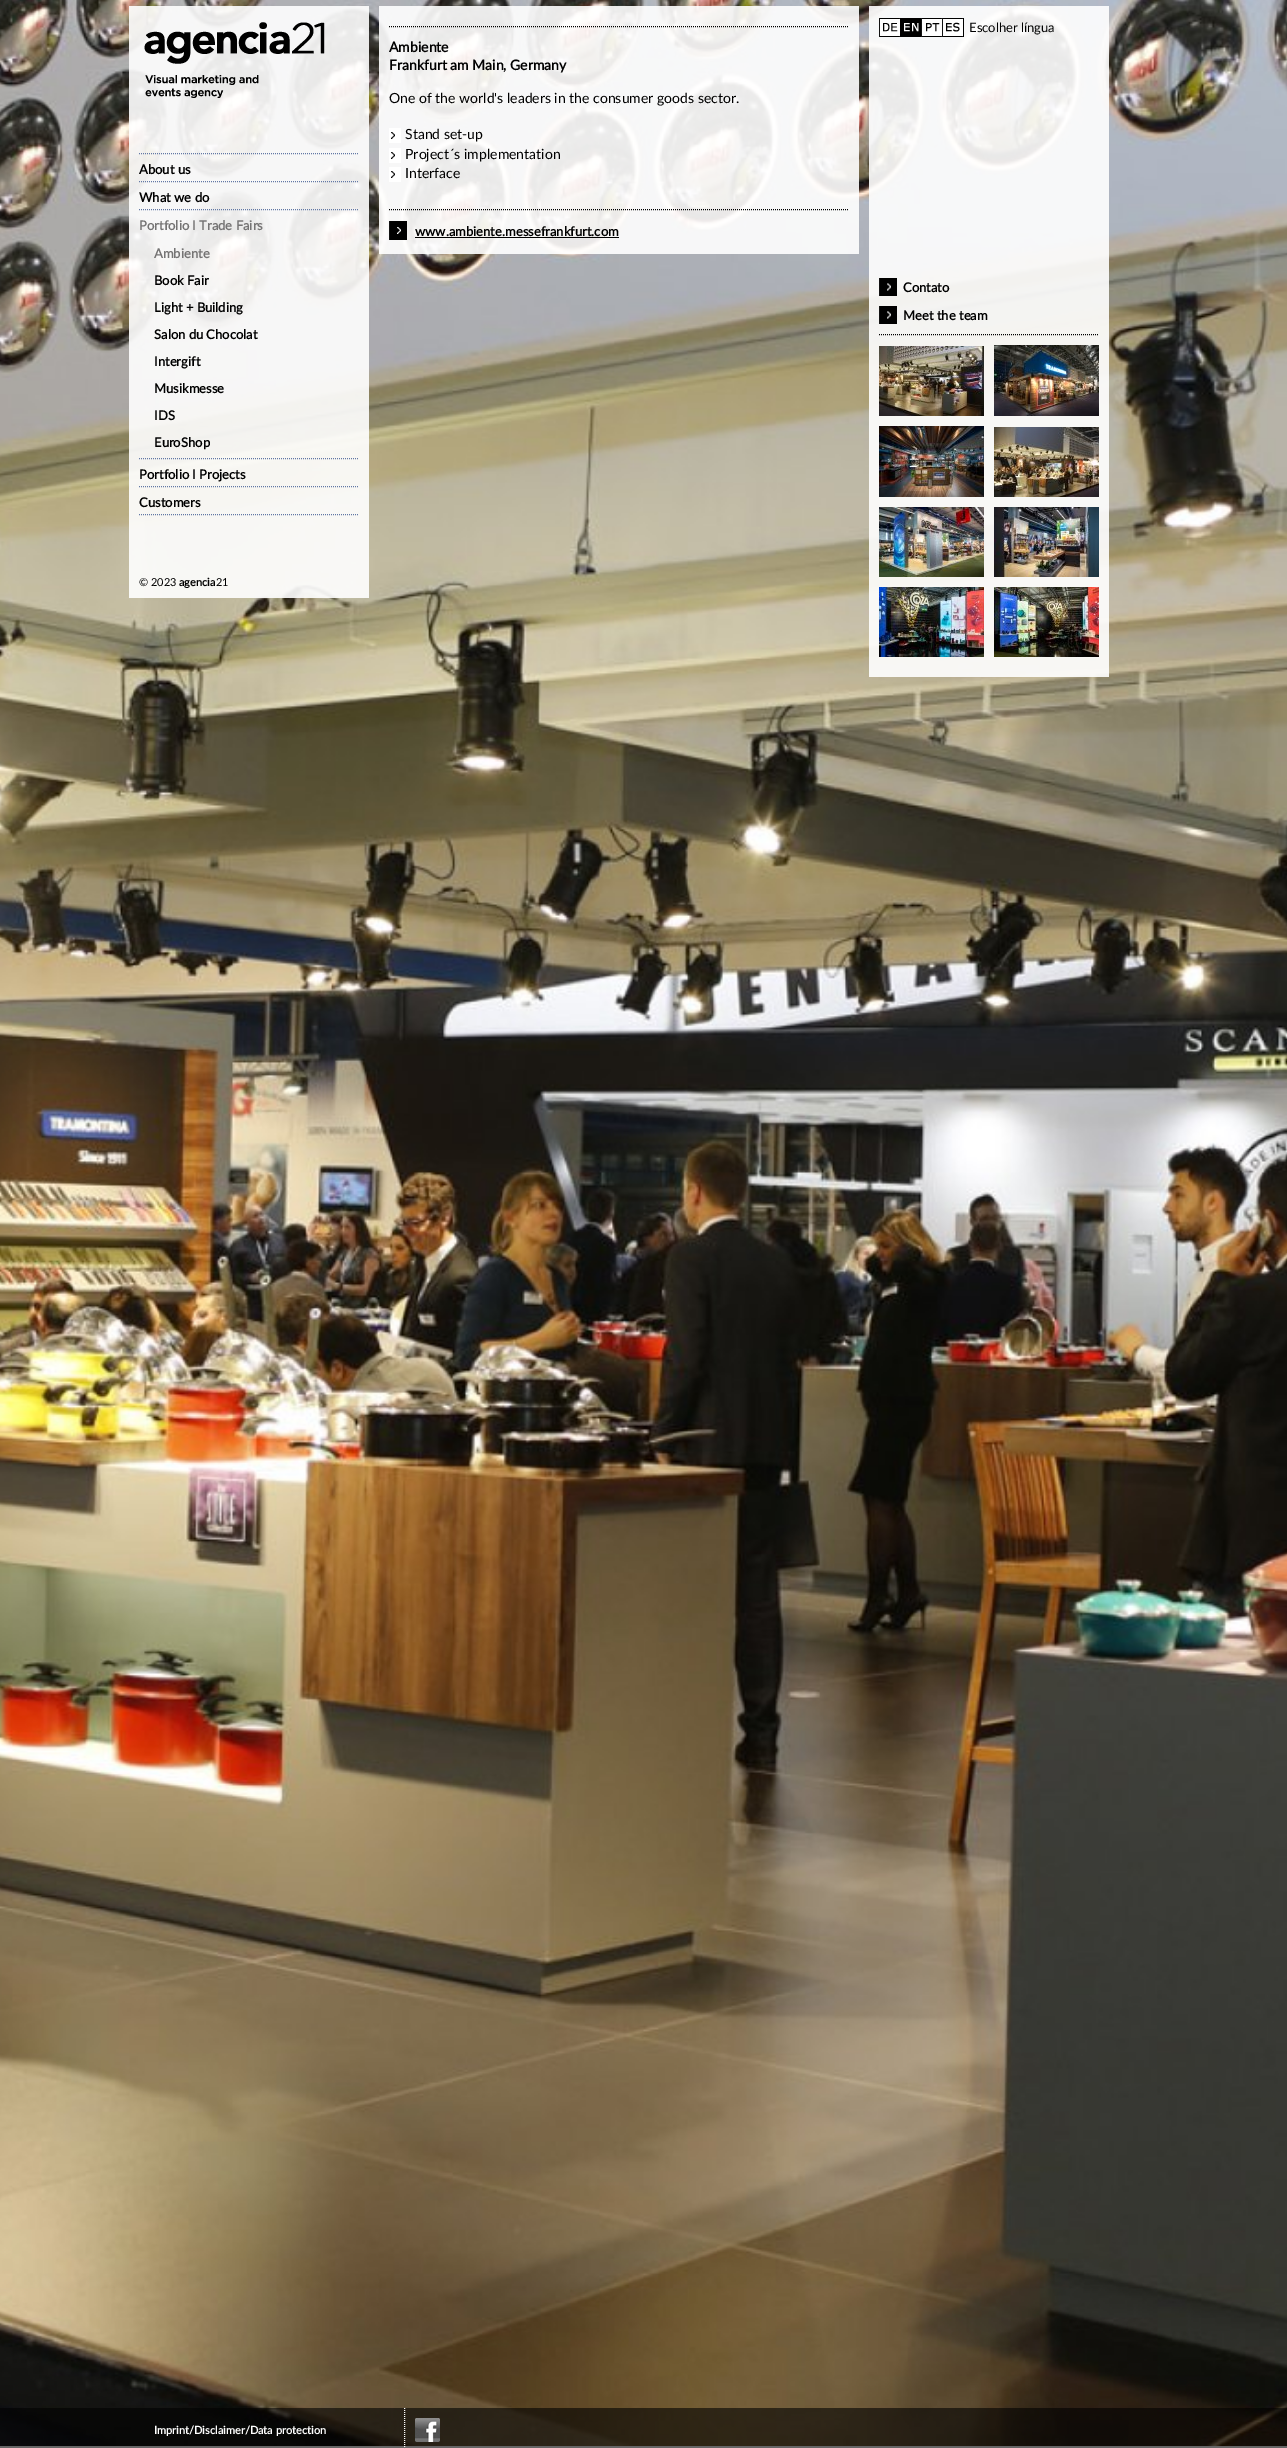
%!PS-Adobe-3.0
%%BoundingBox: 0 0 1287 2448
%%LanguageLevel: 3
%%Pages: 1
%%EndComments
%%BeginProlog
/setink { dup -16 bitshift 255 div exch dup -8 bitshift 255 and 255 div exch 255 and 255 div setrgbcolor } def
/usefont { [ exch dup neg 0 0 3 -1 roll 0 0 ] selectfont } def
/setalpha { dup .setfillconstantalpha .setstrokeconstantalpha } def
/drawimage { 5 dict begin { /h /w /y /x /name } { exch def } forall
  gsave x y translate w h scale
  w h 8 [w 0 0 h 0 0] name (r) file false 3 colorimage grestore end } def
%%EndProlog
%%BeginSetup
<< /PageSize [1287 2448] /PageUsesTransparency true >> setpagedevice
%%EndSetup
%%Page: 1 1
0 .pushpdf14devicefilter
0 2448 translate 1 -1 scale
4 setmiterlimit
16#FFFFFF setink
0 0 1287 2448 rectfill
(img1.raw) 0 0 1287 2446 drawimage
0.9 setalpha
129 6 240 592 rectfill
1 setalpha
(img2.raw) 144 22 181 76 drawimage
16#6278A5 setink
[1 1] 0 setdash
139 514.5 moveto 359 514.5 lineto stroke
139 153.5 moveto 359 153.5 lineto stroke
/Lato-Bold 13 usefont
16#000000 setink
139 174 moveto (About us) show
16#6278A5 setink
139 181.5 moveto 359 181.5 lineto stroke
16#000000 setink
139 202 moveto (What we do) show
16#6278A5 setink
139 209.5 moveto 359 209.5 lineto stroke
16#757474 setink
139 230 moveto (Portfolio I Trade Fairs) show
154 258 moveto (Ambiente) show
16#000000 setink
[
    [(Book Fair) 154 285]
    [(Light + Building) 154 312]
    [(Salon du Chocolat) 154 339]
    [(Intergift) 154 366]
    [(Musikmesse) 154 393]
    [(IDS) 154 420]
    [(EuroShop) 154 447]
] { aload pop moveto show } forall
16#6278A5 setink
139 458.5 moveto 359 458.5 lineto stroke
16#000000 setink
139 479 moveto (Portfolio I Projects) show
16#6278A5 setink
139 486.5 moveto 359 486.5 lineto stroke
16#000000 setink
139 507 moveto (Customers) show
/Lato-Regular 11 usefont
139 586 moveto (© 2023) show
/Lato-Bold 11 usefont
179 586 moveto (agencia) show
/Lato-Regular 11 usefont
216 586 moveto (21) show
0.9 setalpha
16#FFFFFF setink
379 6 480 248 rectfill
1 setalpha
16#000000 setink
389 26.5 moveto 849 26.5 lineto stroke
/Lato-Bold 14 usefont
389 52 moveto (Ambiente) show
389 70 moveto (Frankfurt am Main, Germany) show
/Lato-Regular 14 usefont
389 103 moveto (One of the world's leaders in the consumer goods sector.) show
(img3.raw) 389 128 12 15 drawimage
405 139 moveto (Stand set-up) show
(img3.raw) 389 148 12 15 drawimage
405 159 moveto (Project´s implementation) show
(img3.raw) 389 167 12 15 drawimage
405 178 moveto (Interface) show
389 209.5 moveto 849 209.5 lineto stroke
(img4.raw) 389 221 18 19 drawimage
/Lato-Bold 13 usefont
415 236 moveto (www.ambiente.messefrankfurt.com) show
415 237 204 1 rectfill
0.9 setalpha
16#FFFFFF setink
869 6 240 671 rectfill
1 setalpha
(img5.raw) 879 18 21 19 drawimage
(img6.raw) 900 18 21 19 drawimage
(img7.raw) 921 18 21 19 drawimage
(img8.raw) 942 18 22 19 drawimage
/Lato-Regular 13 usefont
16#000000 setink
969 32 moveto (Escolher língua) show
(img9.raw) 879 278 18 18 drawimage
/Lato-Bold 13 usefont
903 292 moveto (Contato) show
(img9.raw) 879 306 18 18 drawimage
903 320 moveto (Meet the team) show
879 334.5 moveto 1099 334.5 lineto stroke
(img10.raw) 879 346 105 70 drawimage
(img11.raw) 994 345 105 71 drawimage
(img12.raw) 879 426 105 71 drawimage
(img13.raw) 994 427 105 70 drawimage
(img14.raw) 879 507 105 70 drawimage
(img15.raw) 994 507 105 70 drawimage
(img16.raw) 879 587 105 70 drawimage
(img17.raw) 994 587 105 70 drawimage
0.6 setalpha
0 2408 1287 40 rectfill
/Lato-Bold 11 usefont
1 setalpha
16#FFFFFF setink
154 2434 moveto (Imprint/Disclaimer/Data protection) show
404.5 2408 moveto 404.5 2448 lineto stroke
(img18.raw) 415 2418 25 24 drawimage
.poppdf14devicefilter showpage
%%EOF
